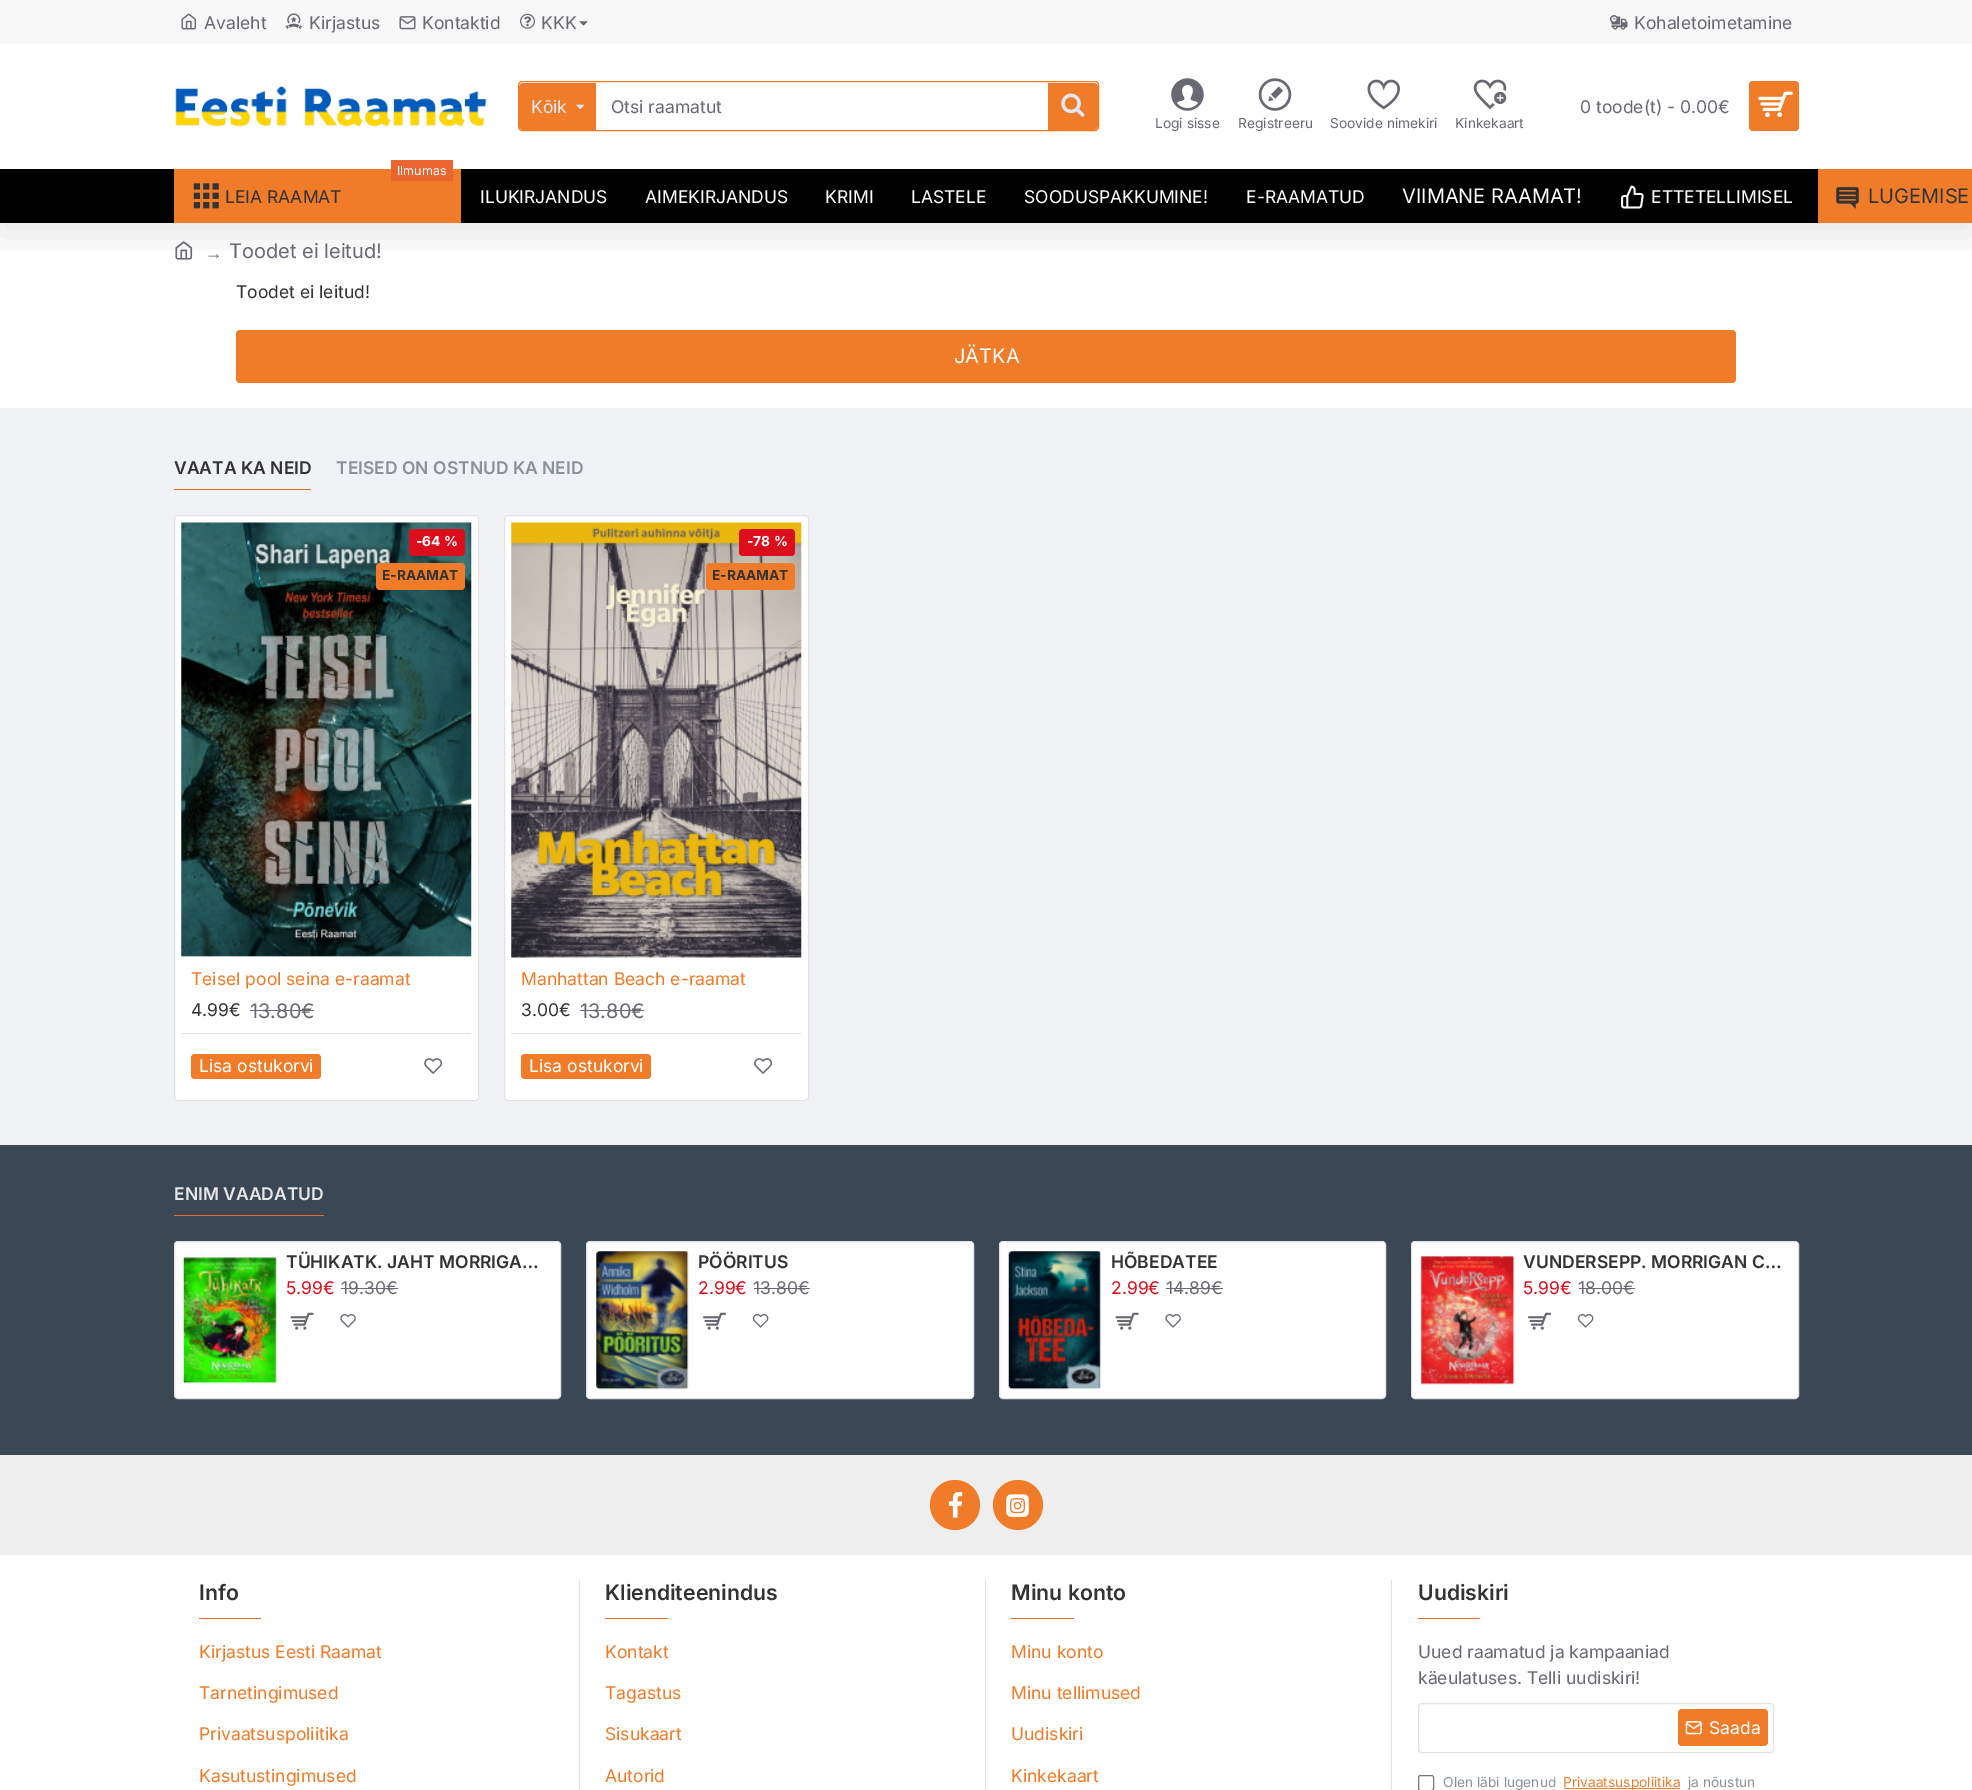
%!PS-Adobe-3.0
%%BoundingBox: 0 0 1972 1790
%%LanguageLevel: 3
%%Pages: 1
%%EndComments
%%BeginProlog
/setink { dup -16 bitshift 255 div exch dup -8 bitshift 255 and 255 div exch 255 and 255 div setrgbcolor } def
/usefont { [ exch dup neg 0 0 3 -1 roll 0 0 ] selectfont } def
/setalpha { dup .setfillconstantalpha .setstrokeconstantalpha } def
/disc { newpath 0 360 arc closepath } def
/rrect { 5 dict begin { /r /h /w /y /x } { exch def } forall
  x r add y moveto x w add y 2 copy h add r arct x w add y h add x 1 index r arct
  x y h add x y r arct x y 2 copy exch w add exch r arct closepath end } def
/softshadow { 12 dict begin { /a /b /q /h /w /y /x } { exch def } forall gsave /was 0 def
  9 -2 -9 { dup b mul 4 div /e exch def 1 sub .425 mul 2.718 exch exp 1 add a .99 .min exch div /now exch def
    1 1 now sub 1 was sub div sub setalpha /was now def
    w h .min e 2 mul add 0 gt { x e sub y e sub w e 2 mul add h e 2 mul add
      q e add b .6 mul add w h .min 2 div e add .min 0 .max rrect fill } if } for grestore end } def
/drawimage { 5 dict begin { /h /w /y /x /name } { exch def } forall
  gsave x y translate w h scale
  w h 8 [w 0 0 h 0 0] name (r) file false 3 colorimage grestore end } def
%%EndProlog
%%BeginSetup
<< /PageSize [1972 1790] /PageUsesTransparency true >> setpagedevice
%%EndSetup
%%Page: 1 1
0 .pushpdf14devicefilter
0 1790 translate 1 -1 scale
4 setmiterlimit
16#FFFFFF setink
0 0 1972 1790 rectfill
(img18.raw) 175 241 18 19 drawimage
gsave
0 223 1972 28 rectclip
16#000000 setink
0 13 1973 222 0 19 0.1 softshadow
grestore
16#F8F8F8 setink
0 0 1972 44 rectfill
(img1.raw) 181 13 16 17 drawimage
/Inter-Regular 17.5 usefont
16#696973 setink
204 29 moveto (Avaleht) show
(img2.raw) 285 13 18 17 drawimage
309 29 moveto (Kirjastus) show
(img3.raw) 399 16 17 14 drawimage
422 29 moveto (Kontaktid) show
(img4.raw) 520 13 15 16 drawimage
541 29 moveto (KKK) show
(img5.raw) 579 21 9 5 drawimage
(img6.raw) 1610 15 18 15 drawimage
1634 29 moveto (Kohaletoimetamine) show
(img7.raw) 175 86 312 41 drawimage
16#F07C29 setink
518.5 81.5 580 49 3.5 rrect stroke
523 83 moveto 596 83 lineto 596 130 lineto 523 130 lineto 521 130 519 128 519 126 curveto 519 87 lineto 519 85 521 83 523 83 curveto closepath fill
16#DFE7F6 setink
531 113 moveto (Kõik) show
(img8.raw) 576 104 9 5 drawimage
16#696973 setink
611 113 moveto (Otsi raamatut) show
16#F07C29 setink
1048 83 moveto 1094 83 lineto 1096 83 1098 85 1098 87 curveto 1098 126 lineto 1098 128 1096 130 1094 130 curveto 1048 130 lineto closepath fill
(img9.raw) 1061 93 24 24 drawimage
16#696973 setink
1580 113 moveto (0 toode\(t\) - 0.00€) show
16#F07C29 setink
1749 81 50 50 4 rrect fill
(img10.raw) 1758 91 35 27 drawimage
(img11.raw) 1171 78 33 33 drawimage
/Inter-Regular 13.75 usefont
16#696973 setink
1155 128 moveto (Logi sisse) show
(img12.raw) 1258 78 34 33 drawimage
1238 128 moveto (Registreeru) show
(img13.raw) 1367 79 33 31 drawimage
1330 128 moveto (Soovide nimekiri) show
(img14.raw) 1473 79 34 31 drawimage
1455 128 moveto (Kinkekaart) show
[
    [0 169 1818 54 16#000000]
    [174 169 287 54 16#F07C29]
    [391 160 62 21 16#E96631]
] { aload pop setink rectfill } forall
/Inter-Regular 12.5 usefont
16#FFFFFF setink
397 175 moveto (Ilmumas) show
(img15.raw) 193 183 26 26 drawimage
/Inter-Regular 17.5 usefont
16#333333 setink
225 203 moveto (LEIA RAAMAT) show
16#FFFFFF setink
[
    [(ILUKIRJANDUS) 480 203]
    [(AIMEKIRJANDUS) 645 203]
    [(KRIMI) 825 203]
    [(LASTELE) 911 203]
    [(SOODUSPAKKUMINE!) 1024 203]
    [(E-RAAMATUD) 1246 203]
] { aload pop moveto show } forall
/Inter-Regular 20 usefont
1402 203 moveto (VIIMANE RAAMAT!) show
(img16.raw) 1621 185 23 24 drawimage
/Inter-Regular 17.5 usefont
1651 203 moveto (ETTETELLIMISEL) show
16#F07C29 setink
1818 169 154 54 rectfill
(img17.raw) 1836 187 23 22 drawimage
/Inter-Regular 20 usefont
16#333333 setink
1868 203 moveto (LUGEMISE) show
/LiberationSerif-Regular 17.5 usefont
16#696973 setink
205 259 moveto (→) show
/Inter-Regular 20 usefont
229 258 moveto (Toodet ei leitud!) show
/Inter-Regular 17.5 usefont
16#333333 setink
236 298 moveto (Toodet ei leitud!) show
16#F07C29 setink
236 330 1500 53 4 rrect fill
/Inter-Regular 20 usefont
16#FFFFFF setink
954 363 moveto (JÄTKA) show
16#F0F2F5 setink
0 408 1972 737 rectfill
16#E96631 setink
174 489 137 1 rectfill
/Inter-SemiBold 17.5 usefont
16#333333 setink
174 474 moveto (VAATA KA NEID) show
16#8B9198 setink
336 474 moveto (TEISED ON OSTNUD KA NEID) show
16#FFFFFF setink
174.5 515.5 304 585 3.5 rrect gsave fill grestore
16#E2E2E2 setink
stroke
(img19.raw) 181 522 291 436 drawimage
16#DD0E1C setink
409 529 56 27 4 rrect fill
/Inter-Bold 13.75 usefont
16#FFFFFF setink
416 546 moveto (-64 %) show
16#F07C29 setink
376 563 89 27 4 rrect fill
16#333333 setink
382 580 moveto (E-RAAMAT) show
/Inter-Regular 17.5 usefont
16#F07C29 setink
191 985 moveto (Teisel pool seina e-raamat) show
16#333333 setink
191 1016 moveto (4.99€) show
/Inter-Regular 20 usefont
16#696973 setink
250 1018 moveto (13.80€) show
250 1010 64 1 rectfill
16#E2E2E2 setink
181 1033 290 1 rectfill
16#F07C29 setink
191 1054 130 25 4 rrect fill
/Inter-Regular 17.5 usefont
16#FFFFFF setink
199 1072 moveto (Lisa ostukorvi) show
(img20.raw) 424 1058 19 16 drawimage
504.5 515.5 304 585 3.5 rrect gsave fill grestore
16#E2E2E2 setink
stroke
(img21.raw) 511 522 291 436 drawimage
16#DD0E1C setink
739 529 56 27 4 rrect fill
/Inter-Bold 13.75 usefont
16#FFFFFF setink
747 546 moveto (-78 %) show
16#F07C29 setink
706 563 89 27 4 rrect fill
16#333333 setink
712 580 moveto (E-RAAMAT) show
/Inter-Regular 17.5 usefont
16#F07C29 setink
521 985 moveto (Manhattan Beach e-raamat) show
16#333333 setink
521 1016 moveto (3.00€) show
/Inter-Regular 20 usefont
16#696973 setink
580 1018 moveto (13.80€) show
580 1010 64 1 rectfill
16#E2E2E2 setink
511 1033 290 1 rectfill
16#F07C29 setink
521 1054 130 25 4 rrect fill
/Inter-Regular 17.5 usefont
16#FFFFFF setink
529 1072 moveto (Lisa ostukorvi) show
(img20.raw) 754 1058 19 16 drawimage
16#3A4754 setink
0 1145 1972 310 rectfill
16#E96631 setink
174 1215 150 1 rectfill
/Inter-SemiBold 17.5 usefont
16#E6E6E6 setink
174 1200 moveto (ENIM VAADATUD) show
16#FFFFFF setink
174.5 1241.5 386 157 3.5 rrect gsave fill grestore
16#E2E2E2 setink
stroke
(img22.raw) 183 1251 94 133 drawimage
16#333333 setink
286 1268 moveto (TÜHIKATK. JAHT MORRIGA…) show
/Inter-Regular 17.5 usefont
16#DD0E1C setink
286 1294 moveto (5.99€) show
16#696973 setink
341 1294 moveto (19.30€) show
341 1288 57 1 rectfill
(img23.raw) 290 1312 24 18 drawimage
(img24.raw) 340 1314 16 14 drawimage
16#FFFFFF setink
586.5 1241.5 387 157 3.5 rrect gsave fill grestore
16#E2E2E2 setink
stroke
(img25.raw) 596 1251 93 139 drawimage
/Inter-SemiBold 17.5 usefont
16#333333 setink
698 1268 moveto (PÖÖRITUS) show
/Inter-Regular 17.5 usefont
16#DD0E1C setink
698 1294 moveto (2.99€) show
16#696973 setink
753 1294 moveto (13.80€) show
754 1288 56 1 rectfill
(img26.raw) 703 1312 24 18 drawimage
(img27.raw) 752 1314 17 14 drawimage
16#FFFFFF setink
999.5 1241.5 386 157 3.5 rrect gsave fill grestore
16#E2E2E2 setink
stroke
(img28.raw) 1008 1251 93 139 drawimage
/Inter-SemiBold 17.5 usefont
16#333333 setink
1111 1268 moveto (HÕBEDATEE) show
/Inter-Regular 17.5 usefont
16#DD0E1C setink
1111 1294 moveto (2.99€) show
16#696973 setink
1166 1294 moveto (14.89€) show
1166 1288 57 1 rectfill
(img23.raw) 1115 1312 24 18 drawimage
(img24.raw) 1165 1314 16 14 drawimage
16#FFFFFF setink
1411.5 1241.5 387 157 3.5 rrect gsave fill grestore
16#E2E2E2 setink
stroke
(img29.raw) 1421 1251 94 134 drawimage
/Inter-SemiBold 17.5 usefont
16#333333 setink
1523 1268 moveto (VUNDERSEPP. MORRIGAN C…) show
/Inter-Regular 17.5 usefont
16#DD0E1C setink
1523 1294 moveto (5.99€) show
16#696973 setink
1578 1294 moveto (18.00€) show
1579 1288 56 1 rectfill
(img26.raw) 1528 1312 24 18 drawimage
(img27.raw) 1577 1314 17 14 drawimage
16#EEEEEE setink
0 1455 1972 100 rectfill
16#F07C29 setink
955 1505 25 disc fill
(img30.raw) 948 1492 15 26 drawimage
1018 1505 25 disc fill
(img31.raw) 1006 1494 23 23 drawimage
16#E2E2E2 setink
579 1580 1 210 rectfill
/Inter-SemiBold 21.25 usefont
16#333333 setink
199 1600 moveto (Info) show
16#E96631 setink
199 1618 62 1 rectfill
/Inter-Regular 17.5 usefont
16#F07C29 setink
[
    [(Kirjastus Eesti Raamat) 199 1658]
    [(Tarnetingimused) 199 1699]
    [(Privaatsuspoliitika) 199 1740]
    [(Kasutustingimused) 199 1782]
] { aload pop moveto show } forall
16#E2E2E2 setink
985 1580 1 210 rectfill
/Inter-SemiBold 21.25 usefont
16#333333 setink
605 1600 moveto (Klienditeenindus) show
16#E96631 setink
605 1618 63 1 rectfill
/Inter-Regular 17.5 usefont
16#F07C29 setink
[
    [(Kontakt) 605 1658]
    [(Tagastus) 605 1699]
    [(Sisukaart) 605 1740]
    [(Autorid) 605 1782]
] { aload pop moveto show } forall
16#E2E2E2 setink
1391 1580 1 210 rectfill
/Inter-SemiBold 21.25 usefont
16#333333 setink
1011 1600 moveto (Minu konto) show
16#E96631 setink
1011 1618 63 1 rectfill
/Inter-Regular 17.5 usefont
16#F07C29 setink
[
    [(Minu konto) 1011 1658]
    [(Minu tellimused) 1011 1699]
    [(Uudiskiri) 1011 1740]
    [(Kinkekaart) 1011 1782]
] { aload pop moveto show } forall
/Inter-SemiBold 21.25 usefont
16#333333 setink
1418 1600 moveto (Uudiskiri) show
16#E96631 setink
1418 1618 62 1 rectfill
/Inter-Regular 17.5 usefont
16#696973 setink
1418 1658 moveto (Uued raamatud ja kampaaniad) show
1418 1684 moveto (käeulatuses. Telli uudiskiri!) show
16#E2E2E2 setink
1418.5 1703.5 355 49 3.5 rrect stroke
16#F07C29 setink
1678 1709 90 37 4 rrect fill
(img32.raw) 1685 1721 17 14 drawimage
16#FFFFFF setink
1709 1734 moveto (Saada) show
16#767676 setink
1418.5 1775.5 15 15 2 rrect stroke
/Inter-Regular 13.75 usefont
16#8B9198 setink
1443 1787 moveto (Olen läbi lugenud) show
16#F07C29 setink
1564 1788 116 1 rectfill
1563 1787 moveto (Privaatsuspoliitika) show
16#8B9198 setink
1688 1787 moveto (ja nõustun) show
.poppdf14devicefilter showpage
%%EOF
